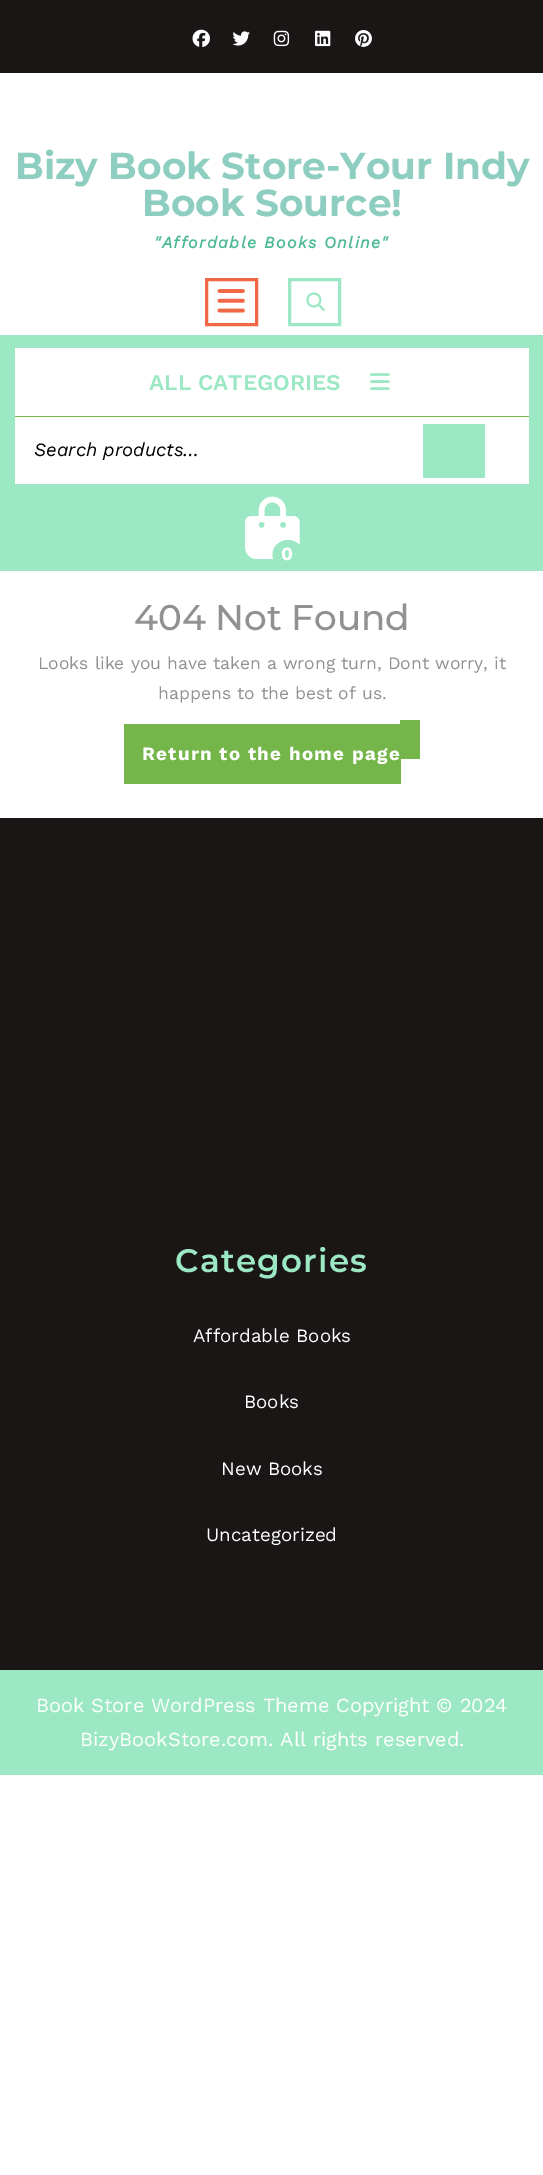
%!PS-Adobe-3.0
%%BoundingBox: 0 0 543 2175
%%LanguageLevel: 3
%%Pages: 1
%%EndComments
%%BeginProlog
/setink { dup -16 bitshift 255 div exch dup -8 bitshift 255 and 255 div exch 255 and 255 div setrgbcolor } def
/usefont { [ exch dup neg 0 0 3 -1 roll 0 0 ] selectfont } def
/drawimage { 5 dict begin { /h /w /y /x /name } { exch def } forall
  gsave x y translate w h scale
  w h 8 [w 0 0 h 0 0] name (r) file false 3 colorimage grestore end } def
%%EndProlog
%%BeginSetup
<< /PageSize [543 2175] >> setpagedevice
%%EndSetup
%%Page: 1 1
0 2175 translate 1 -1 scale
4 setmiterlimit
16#FFFFFF setink
0 0 543 2175 rectfill
16#1A1616 setink
0 0 543 73 rectfill
(img1.raw) 192 29 18 19 drawimage
(img2.raw) 232 31 18 15 drawimage
(img3.raw) 273 30 17 17 drawimage
(img4.raw) 315 30 16 17 drawimage
(img5.raw) 355 30 17 17 drawimage
/Montserrat-Bold 37.5 usefont
16#8ECEC1 setink
15 179 moveto (Bizy Book Store-Your Indy) show
142 216 moveto (Book Source!) show
/WorkSans-BoldItalic 16.25 usefont
16#4CBA95 setink
154 248 moveto 1.25 0 ("Affordable Books Online") ashow
16#F06845 setink
3 setlinewidth
206.5 279.5 50 45 rectstroke
(img6.raw) 217 289 28 24 drawimage
16#9DE8C4 setink
289.5 279.5 50 45 rectstroke
(img7.raw) 306 292 19 19 drawimage
0 335 543 236 rectfill
16#FFFFFF setink
15 348 514 68 rectfill
/WorkSans-SemiBold 22.5 usefont
16#9DE8C4 setink
149 390 moveto (ALL CATEGORIES) show
(img8.raw) 370 373 20 17 drawimage
16#FFFFFF setink
15 417 514 67 rectfill
16#75B64A setink
15 416 514 1 rectfill
/WorkSans-Italic 18.75 usefont
16#000000 setink
34 456 moveto (Search products…) show
16#9DE8C4 setink
423 424 62 54 rectfill
(img9.raw) 245 496 55 64 drawimage
288 540 moveto 296.5 540 303.5 546.5 303.5 554.5 curveto 303.5 562.5 296.5 569 288 569 curveto 279.5 569 272.5 562.5 272.5 554.5 curveto 272.5 546.5 279.5 540 288 540 curveto closepath fill
/WorkSans-Bold 18.75 usefont
16#FFFFFF setink
281 560 moveto (0) show
/Montserrat-Medium 35.75 usefont
16#919191 setink
134 630 moveto (404 Not Found) show
/WorkSans-Regular 17.5 usefont
38 669 moveto (Looks like you have taken a wrong turn, Dont worry, it) show
158 699 moveto (happens to the best of us.) show
16#75B64A setink
124 724 277 60 rectfill
/WorkSans-Bold 18.75 usefont
16#FFFFFF setink
142 760 moveto 1.25 0 (Return to the home page) ashow
16#75B64A setink
400 720 20 39 rectfill
16#1A1616 setink
0 818 543 852 rectfill
/Montserrat-SemiBold 32.5 usefont
16#9DE8C4 setink
175 1272 moveto 1.25 0 (Categories) ashow
/WorkSans-Regular 18.75 usefont
16#FFFFFF setink
[
    [(Affordable Books) 193 1342]
    [(Books) 244 1408]
    [(New Books) 221 1475]
    [(Uncategorized) 206 1541]
] { aload pop moveto show } forall
16#9DE8C4 setink
0 1670 543 105 rectfill
/WorkSans-Regular 20 usefont
16#FFFFFF setink
36 1712 moveto (Book Store WordPress Theme Copyright © 2024) show
80 1746 moveto (BizyBookStore.com. All rights reserved.) show
showpage
%%EOF
